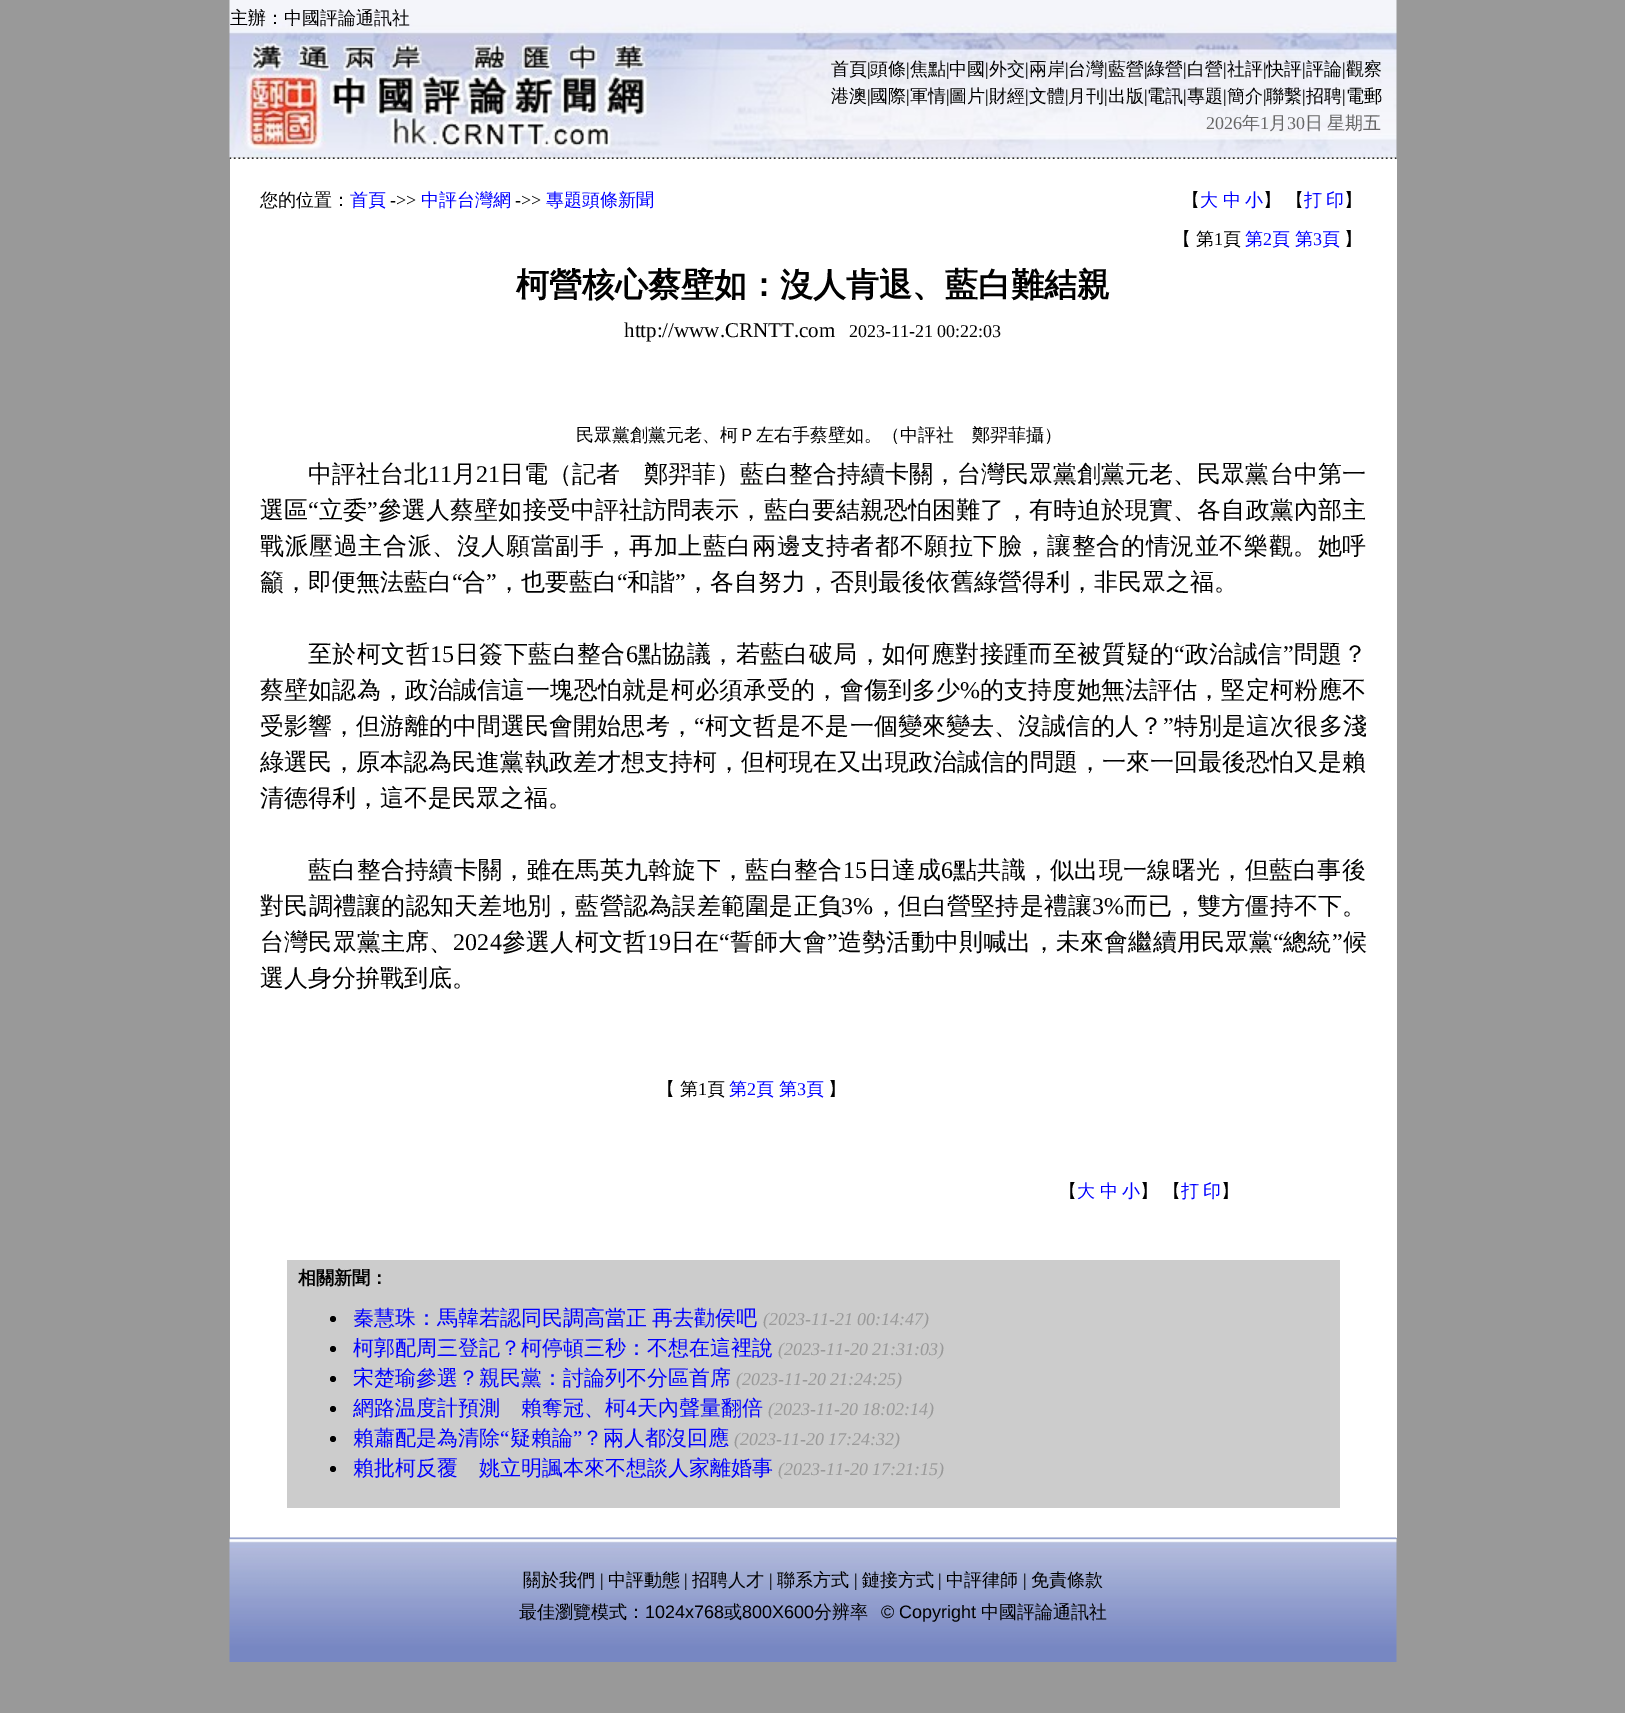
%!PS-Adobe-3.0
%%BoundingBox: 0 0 1625 1713
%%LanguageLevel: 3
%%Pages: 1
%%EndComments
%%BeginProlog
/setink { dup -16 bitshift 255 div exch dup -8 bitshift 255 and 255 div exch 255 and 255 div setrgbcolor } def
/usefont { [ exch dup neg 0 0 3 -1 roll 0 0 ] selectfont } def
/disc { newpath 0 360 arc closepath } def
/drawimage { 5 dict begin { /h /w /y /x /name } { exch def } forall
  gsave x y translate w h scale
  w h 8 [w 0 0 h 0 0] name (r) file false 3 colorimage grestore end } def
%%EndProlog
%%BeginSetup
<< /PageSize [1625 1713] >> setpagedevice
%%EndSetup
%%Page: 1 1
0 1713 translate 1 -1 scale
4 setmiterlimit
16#999999 setink
0 0 1625 1713 rectfill
(img1.raw) 229 0 1168 158 drawimage
/WenQuanYiZenHei-Medium 18 usefont
16#000000 setink
230 24 moveto (主辦：中國評論通訊社) show
831 75 moveto (首頁) show
/LiberationSerif-Regular 18 usefont
867 75 moveto (|) show
/WenQuanYiZenHei-Medium 18 usefont
870 75 moveto (頭條) show
/LiberationSerif-Regular 18 usefont
906 75 moveto (|) show
/WenQuanYiZenHei-Medium 18 usefont
910 75 moveto (焦點) show
/LiberationSerif-Regular 18 usefont
946 75 moveto (|) show
/WenQuanYiZenHei-Medium 18 usefont
949 75 moveto (中國) show
/LiberationSerif-Regular 18 usefont
985 75 moveto (|) show
/WenQuanYiZenHei-Medium 18 usefont
989 75 moveto (外交) show
/LiberationSerif-Regular 18 usefont
1025 75 moveto (|) show
/WenQuanYiZenHei-Medium 18 usefont
1029 75 moveto (兩岸) show
/LiberationSerif-Regular 18 usefont
1065 75 moveto (|) show
/WenQuanYiZenHei-Medium 18 usefont
1068 75 moveto (台灣) show
/LiberationSerif-Regular 18 usefont
1104 75 moveto (|) show
/WenQuanYiZenHei-Medium 18 usefont
1108 75 moveto (藍營) show
/LiberationSerif-Regular 18 usefont
1144 75 moveto (|) show
/WenQuanYiZenHei-Medium 18 usefont
1147 75 moveto (綠營) show
/LiberationSerif-Regular 18 usefont
1183 75 moveto (|) show
/WenQuanYiZenHei-Medium 18 usefont
1187 75 moveto (白營) show
/LiberationSerif-Regular 18 usefont
1223 75 moveto (|) show
/WenQuanYiZenHei-Medium 18 usefont
1227 75 moveto (社評) show
/LiberationSerif-Regular 18 usefont
1263 75 moveto (|) show
/WenQuanYiZenHei-Medium 18 usefont
1266 75 moveto (快評) show
/LiberationSerif-Regular 18 usefont
1302 75 moveto (|) show
/WenQuanYiZenHei-Medium 18 usefont
1306 75 moveto (評論) show
/LiberationSerif-Regular 18 usefont
1342 75 moveto (|) show
/WenQuanYiZenHei-Medium 18 usefont
1346 75 moveto (觀察) show
831 102 moveto (港澳) show
/LiberationSerif-Regular 18 usefont
867 102 moveto (|) show
/WenQuanYiZenHei-Medium 18 usefont
870 102 moveto (國際) show
/LiberationSerif-Regular 18 usefont
906 102 moveto (|) show
/WenQuanYiZenHei-Medium 18 usefont
910 102 moveto (軍情) show
/LiberationSerif-Regular 18 usefont
946 102 moveto (|) show
/WenQuanYiZenHei-Medium 18 usefont
949 102 moveto (圖片) show
/LiberationSerif-Regular 18 usefont
985 102 moveto (|) show
/WenQuanYiZenHei-Medium 18 usefont
989 102 moveto (財經) show
/LiberationSerif-Regular 18 usefont
1025 102 moveto (|) show
/WenQuanYiZenHei-Medium 18 usefont
1029 102 moveto (文體) show
/LiberationSerif-Regular 18 usefont
1065 102 moveto (|) show
/WenQuanYiZenHei-Medium 18 usefont
1068 102 moveto (月刊) show
/LiberationSerif-Regular 18 usefont
1104 102 moveto (|) show
/WenQuanYiZenHei-Medium 18 usefont
1108 102 moveto (出版) show
/LiberationSerif-Regular 18 usefont
1144 102 moveto (|) show
/WenQuanYiZenHei-Medium 18 usefont
1147 102 moveto (電訊) show
/LiberationSerif-Regular 18 usefont
1183 102 moveto (|) show
/WenQuanYiZenHei-Medium 18 usefont
1187 102 moveto (專題) show
/LiberationSerif-Regular 18 usefont
1223 102 moveto (|) show
/WenQuanYiZenHei-Medium 18 usefont
1227 102 moveto (簡介) show
/LiberationSerif-Regular 18 usefont
1263 102 moveto (|) show
/WenQuanYiZenHei-Medium 18 usefont
1266 102 moveto (聯繫) show
/LiberationSerif-Regular 18 usefont
1302 102 moveto (|) show
/WenQuanYiZenHei-Medium 18 usefont
1306 102 moveto (招聘) show
/LiberationSerif-Regular 18 usefont
1342 102 moveto (|) show
/WenQuanYiZenHei-Medium 18 usefont
1346 102 moveto (電郵) show
/LiberationSerif-Regular 18 usefont
16#666666 setink
1206 129 moveto (2026) show
/WenQuanYiZenHei-Medium 18 usefont
1242 129 moveto (年) show
/LiberationSerif-Regular 18 usefont
1260 129 moveto (1) show
/WenQuanYiZenHei-Medium 18 usefont
1269 129 moveto (月) show
/LiberationSerif-Regular 18 usefont
1287 129 moveto (30) show
/WenQuanYiZenHei-Medium 18 usefont
1305 129 moveto -1 0 32 (日 星期五) widthshow
(img2.raw) 229 157 1168 2 drawimage
16#FFFFFF setink
230 159 1167 1379 rectfill
16#000000 setink
260 206 moveto (您的位置：) show
16#0000FF setink
350 206 moveto (首頁) show
/LiberationSerif-Regular 18 usefont
16#000000 setink
390 206 moveto (->>) show
/WenQuanYiZenHei-Medium 18 usefont
16#0000FF setink
421 206 moveto (中評台灣網) show
/LiberationSerif-Regular 18 usefont
16#000000 setink
515 206 moveto (->>) show
/WenQuanYiZenHei-Medium 18 usefont
16#0000FF setink
546 206 moveto (專題頭條新聞) show
16#000000 setink
1182 206 moveto (【) show
16#0000FF setink
[
    [(大) 1200 206]
    [(中) 1223 206]
    [(小) 1245 206]
] { aload pop moveto show } forall
16#000000 setink
1263 206 moveto (】) show
1286 206 moveto (【) show
16#0000FF setink
1304 206 moveto -1 0 32 (打 印) widthshow
16#000000 setink
[
    [(】) 1344 206]
    [(【) 1173 245]
    [(第) 1196 245]
] { aload pop moveto show } forall
/LiberationSerif-Regular 18 usefont
1214 245 moveto (1) show
/WenQuanYiZenHei-Medium 18 usefont
1223 245 moveto (頁) show
16#0000FF setink
1245 245 moveto (第) show
/LiberationSerif-Regular 18 usefont
1263 245 moveto (2) show
/WenQuanYiZenHei-Medium 18 usefont
1272 245 moveto (頁) show
1295 245 moveto (第) show
/LiberationSerif-Regular 18 usefont
1313 245 moveto (3) show
/WenQuanYiZenHei-Medium 18 usefont
1322 245 moveto (頁) show
16#000000 setink
1344 245 moveto (】) show
/WenQuanYiZenHei-Bold 33 usefont
516 296 moveto (柯營核心蔡壁如：沒人肯退、藍白難結親) show
/LiberationSerif-Regular 21 usefont
624 337 moveto (http://www.CRNTT.com) show
/LiberationSerif-Regular 18 usefont
849 337 moveto (2023-11-21 00:22:03) show
/WenQuanYiZenHei-Medium 18 usefont
576 441 moveto (民眾黨創黨元老、柯Ｐ左右手蔡壁如。（中評社　鄭羿菲攝）) show
/WenQuanYiZenHei-Medium 24 usefont
308 482 moveto 0.05 0 (中評社台北) ashow
/LiberationSerif-Regular 24 usefont
428 482 moveto 0.05 0 (11) ashow
/WenQuanYiZenHei-Medium 24 usefont
452 482 moveto 0.05 0 (月) ashow
/LiberationSerif-Regular 24 usefont
476 482 moveto 0.05 0 (21) ashow
/WenQuanYiZenHei-Medium 24 usefont
500 482 moveto 0.05 0 (日電（記者　鄭羿菲）藍白整合持續卡關，台灣民眾黨創黨元老、民眾黨台中第一) ashow
260 518 moveto 0.1 0 (選區) ashow
/LiberationSerif-Regular 24 usefont
308 518 moveto 0.1 0 (“) ashow
/WenQuanYiZenHei-Medium 24 usefont
319 518 moveto 0.1 0 (立委) ashow
/LiberationSerif-Regular 24 usefont
367 518 moveto 0.1 0 (”) ashow
/WenQuanYiZenHei-Medium 24 usefont
378 518 moveto 0.1 0 (參選人蔡壁如接受中評社訪問表示，藍白要結親恐怕困難了，有時迫於現實、各自政黨內部主) ashow
260 554 moveto 0.6 0 (戰派壓過主合派、沒人願當副手，再加上藍白兩邊支持者都不願拉下臉，讓整合的情況並不樂觀。她呼) ashow
260 590 moveto (籲，即便無法藍白) show
/LiberationSerif-Regular 24 usefont
452 590 moveto (“) show
/WenQuanYiZenHei-Medium 24 usefont
462 590 moveto (合) show
/LiberationSerif-Regular 24 usefont
486 590 moveto (”) show
/WenQuanYiZenHei-Medium 24 usefont
497 590 moveto (，也要藍白) show
/LiberationSerif-Regular 24 usefont
617 590 moveto (“) show
/WenQuanYiZenHei-Medium 24 usefont
627 590 moveto (和諧) show
/LiberationSerif-Regular 24 usefont
675 590 moveto (”) show
/WenQuanYiZenHei-Medium 24 usefont
686 590 moveto (，各自努力，否則最後依舊綠營得利，非民眾之福。) show
308 662 moveto 0.4 0 (至於柯文哲) ashow
/LiberationSerif-Regular 24 usefont
430 662 moveto 0.4 0 (15) ashow
/WenQuanYiZenHei-Medium 24 usefont
455 662 moveto 0.4 0 (日簽下藍白整合) ashow
/LiberationSerif-Regular 24 usefont
626 662 moveto 0.4 0 (6) ashow
/WenQuanYiZenHei-Medium 24 usefont
638 662 moveto 0.4 0 (點協議，若藍白破局，如何應對接踵而至被質疑的) ashow
/LiberationSerif-Regular 24 usefont
1174 662 moveto 0.4 0 (“) ashow
/WenQuanYiZenHei-Medium 24 usefont
1185 662 moveto 0.4 0 (政治誠信) ashow
/LiberationSerif-Regular 24 usefont
1283 662 moveto 0.4 0 (”) ashow
/WenQuanYiZenHei-Medium 24 usefont
1294 662 moveto 0.4 0 (問題？) ashow
260 698 moveto 0.15 0 (蔡壁如認為，政治誠信這一塊恐怕就是柯必須承受的，會傷到多少) ashow
/LiberationSerif-Regular 24 usefont
960 698 moveto 0.15 0 (%) ashow
/WenQuanYiZenHei-Medium 24 usefont
980 698 moveto 0.15 0 (的支持度她無法評估，堅定柯粉應不) ashow
260 734 moveto 0.1 0 (受影響，但游離的中間選民會開始思考，) ashow
/LiberationSerif-Regular 24 usefont
694 734 moveto 0.1 0 (“) ashow
/WenQuanYiZenHei-Medium 24 usefont
705 734 moveto 0.1 0 (柯文哲是不是一個變來變去、沒誠信的人？) ashow
/LiberationSerif-Regular 24 usefont
1163 734 moveto 0.1 0 (”) ashow
/WenQuanYiZenHei-Medium 24 usefont
1174 734 moveto 0.1 0 (特別是這次很多淺) ashow
260 770 moveto 0.05 0 (綠選民，原本認為民進黨執政差才想支持柯，但柯現在又出現政治誠信的問題，一來一回最後恐怕又是賴) ashow
260 806 moveto (清德得利，這不是民眾之福。) show
308 878 moveto 0.3 0 (藍白整合持續卡關，雖在馬英九斡旋下，藍白整合) ashow
/LiberationSerif-Regular 24 usefont
843 878 moveto 0.3 0 (15) ashow
/WenQuanYiZenHei-Medium 24 usefont
868 878 moveto 0.3 0 (日達成) ashow
/LiberationSerif-Regular 24 usefont
941 878 moveto 0.3 0 (6) ashow
/WenQuanYiZenHei-Medium 24 usefont
953 878 moveto 0.3 0 (點共識，似出現一線曙光，但藍白事後) ashow
260 914 moveto 0.25 0 (對民調禮讓的認知天差地別，藍營認為誤差範圍是正負) ashow
/LiberationSerif-Regular 24 usefont
841 914 moveto 0.25 0 (3%) ashow
/WenQuanYiZenHei-Medium 24 usefont
874 914 moveto 0.25 0 (，但白營堅持是禮讓) ashow
/LiberationSerif-Regular 24 usefont
1092 914 moveto 0.25 0 (3%) ashow
/WenQuanYiZenHei-Medium 24 usefont
1124 914 moveto 0.25 0 (而已，雙方僵持不下。) ashow
260 950 moveto 0.2 0 (台灣民眾黨主席、) ashow
/LiberationSerif-Regular 24 usefont
453 950 moveto 0.2 0 (2024) ashow
/WenQuanYiZenHei-Medium 24 usefont
502 950 moveto 0.2 0 (參選人柯文哲) ashow
/LiberationSerif-Regular 24 usefont
647 950 moveto 0.2 0 (19) ashow
/WenQuanYiZenHei-Medium 24 usefont
671 950 moveto 0.2 0 (日在) ashow
/LiberationSerif-Regular 24 usefont
719 950 moveto 0.2 0 (“) ashow
/WenQuanYiZenHei-Medium 24 usefont
730 950 moveto 0.2 0 (誓師大會) ashow
/LiberationSerif-Regular 24 usefont
827 950 moveto 0.2 0 (”) ashow
/WenQuanYiZenHei-Medium 24 usefont
838 950 moveto 0.2 0 (造勢活動中則喊出，未來會繼續用民眾黨) ashow
/LiberationSerif-Regular 24 usefont
1273 950 moveto 0.2 0 (“) ashow
/WenQuanYiZenHei-Medium 24 usefont
1283 950 moveto 0.2 0 (總統) ashow
/LiberationSerif-Regular 24 usefont
1332 950 moveto 0.2 0 (”) ashow
/WenQuanYiZenHei-Medium 24 usefont
1343 950 moveto 0.2 0 (候) ashow
260 986 moveto (選人身分拚戰到底。) show
/WenQuanYiZenHei-Medium 18 usefont
657 1095 moveto (【) show
680 1095 moveto (第) show
/LiberationSerif-Regular 18 usefont
698 1095 moveto (1) show
/WenQuanYiZenHei-Medium 18 usefont
707 1095 moveto (頁) show
16#0000FF setink
729 1095 moveto (第) show
/LiberationSerif-Regular 18 usefont
747 1095 moveto (2) show
/WenQuanYiZenHei-Medium 18 usefont
756 1095 moveto (頁) show
779 1095 moveto (第) show
/LiberationSerif-Regular 18 usefont
797 1095 moveto (3) show
/WenQuanYiZenHei-Medium 18 usefont
806 1095 moveto (頁) show
16#000000 setink
828 1095 moveto (】) show
1059 1197 moveto (【) show
16#0000FF setink
[
    [(大) 1077 1197]
    [(中) 1100 1197]
    [(小) 1122 1197]
] { aload pop moveto show } forall
16#000000 setink
1140 1197 moveto (】) show
1163 1197 moveto (【) show
16#0000FF setink
1181 1197 moveto -1 0 32 (打 印) widthshow
16#000000 setink
1221 1197 moveto (】) show
16#CCCCCC setink
287 1260 1053 248 rectfill
/WenQuanYiZenHei-Bold 18 usefont
16#000000 setink
298 1284 moveto (相關新聞：) show
333 1319 3 disc fill
/WenQuanYiZenHei-Medium 21 usefont
16#0000FF setink
353 1325 moveto -1 0 32 (秦慧珠：馬韓若認同民調高當正 再去勸侯吧) widthshow
/LiberationSerif-Italic 18 usefont
16#999999 setink
763 1325 moveto (\(2023-11-21 00:14:47\)) show
16#000000 setink
333 1349 3 disc fill
/WenQuanYiZenHei-Medium 21 usefont
16#0000FF setink
353 1355 moveto (柯郭配周三登記？柯停頓三秒：不想在這裡說) show
/LiberationSerif-Italic 18 usefont
16#999999 setink
778 1355 moveto (\(2023-11-20 21:31:03\)) show
16#000000 setink
333 1379 3 disc fill
/WenQuanYiZenHei-Medium 21 usefont
16#0000FF setink
353 1385 moveto (宋楚瑜參選？親民黨：討論列不分區首席) show
/LiberationSerif-Italic 18 usefont
16#999999 setink
736 1385 moveto (\(2023-11-20 21:24:25\)) show
16#000000 setink
333 1409 3 disc fill
/WenQuanYiZenHei-Medium 21 usefont
16#0000FF setink
353 1415 moveto (網路温度計預測　賴奪冠、柯) show
/LiberationSerif-Regular 21 usefont
626 1415 moveto (4) show
/WenQuanYiZenHei-Medium 21 usefont
637 1415 moveto (天內聲量翻倍) show
/LiberationSerif-Italic 18 usefont
16#999999 setink
768 1415 moveto (\(2023-11-20 18:02:14\)) show
16#000000 setink
333 1439 3 disc fill
/WenQuanYiZenHei-Medium 21 usefont
16#0000FF setink
353 1445 moveto (賴蕭配是為清除) show
/LiberationSerif-Regular 21 usefont
500 1445 moveto (“) show
/WenQuanYiZenHei-Medium 21 usefont
510 1445 moveto (疑賴論) show
/LiberationSerif-Regular 21 usefont
573 1445 moveto (”) show
/WenQuanYiZenHei-Medium 21 usefont
582 1445 moveto (？兩人都沒回應) show
/LiberationSerif-Italic 18 usefont
16#999999 setink
734 1445 moveto (\(2023-11-20 17:24:32\)) show
16#000000 setink
333 1469 3 disc fill
/WenQuanYiZenHei-Medium 21 usefont
16#0000FF setink
353 1475 moveto (賴批柯反覆　姚立明諷本來不想談人家離婚事) show
/LiberationSerif-Italic 18 usefont
16#999999 setink
778 1475 moveto (\(2023-11-20 17:21:15\)) show
(img3.raw) 229 1537 1168 125 drawimage
/WenQuanYiZenHei-Medium 18 usefont
16#000000 setink
523 1586 moveto (關於我們) show
/LiberationSerif-Regular 18 usefont
600 1586 moveto (|) show
/WenQuanYiZenHei-Medium 18 usefont
608 1586 moveto (中評動態) show
/LiberationSerif-Regular 18 usefont
684 1586 moveto (|) show
/WenQuanYiZenHei-Medium 18 usefont
692 1586 moveto (招聘人才) show
/LiberationSerif-Regular 18 usefont
769 1586 moveto (|) show
/WenQuanYiZenHei-Medium 18 usefont
777 1586 moveto (聯系方式) show
/LiberationSerif-Regular 18 usefont
854 1586 moveto (|) show
/WenQuanYiZenHei-Medium 18 usefont
862 1586 moveto (鏈接方式) show
/LiberationSerif-Regular 18 usefont
938 1586 moveto (|) show
/WenQuanYiZenHei-Medium 18 usefont
946 1586 moveto (中評律師) show
/LiberationSerif-Regular 18 usefont
1023 1586 moveto (|) show
/WenQuanYiZenHei-Medium 18 usefont
1031 1586 moveto (免責條款) show
519 1618 moveto (最佳瀏覽模式：) show
/LiberationSans-Regular 18 usefont
645 1618 moveto (1024x768) show
/WenQuanYiZenHei-Medium 18 usefont
724 1618 moveto (或) show
/LiberationSans-Regular 18 usefont
742 1618 moveto (800X600) show
/WenQuanYiZenHei-Medium 18 usefont
814 1618 moveto (分辨率) show
/LiberationSans-Regular 18 usefont
881 1618 moveto (© Copyright) show
/WenQuanYiZenHei-Medium 18 usefont
981 1618 moveto (中國評論通訊社) show
showpage
%%EOF
